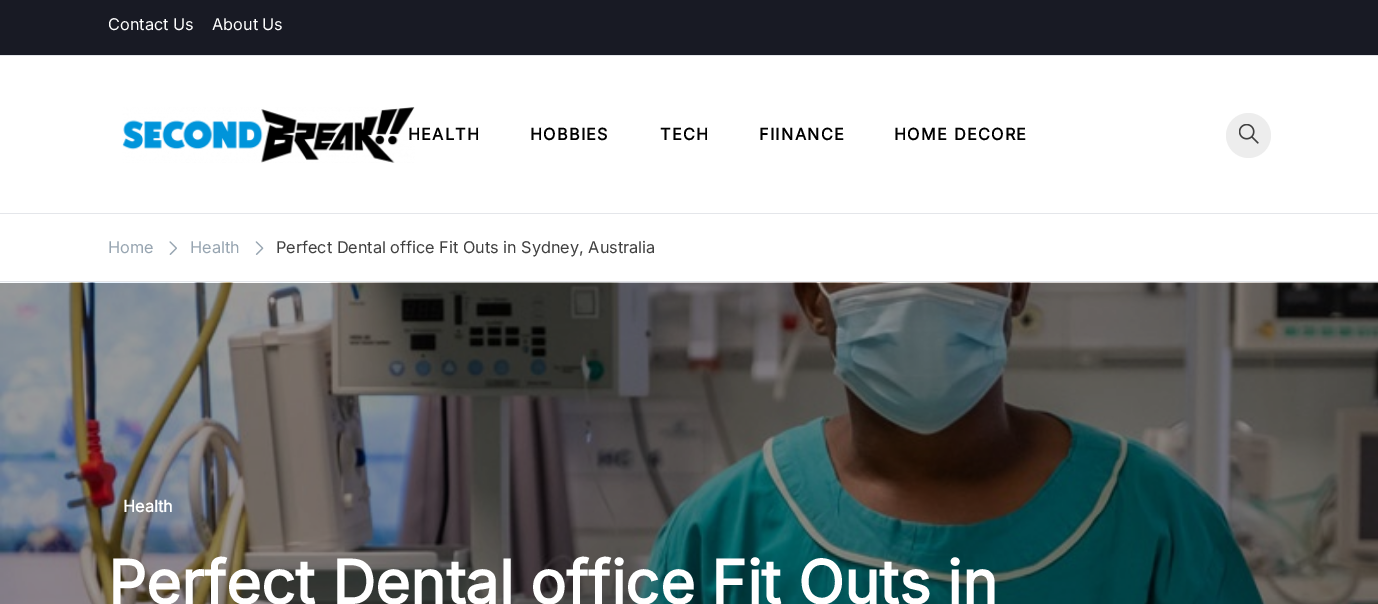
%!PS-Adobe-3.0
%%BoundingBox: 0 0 1378 604
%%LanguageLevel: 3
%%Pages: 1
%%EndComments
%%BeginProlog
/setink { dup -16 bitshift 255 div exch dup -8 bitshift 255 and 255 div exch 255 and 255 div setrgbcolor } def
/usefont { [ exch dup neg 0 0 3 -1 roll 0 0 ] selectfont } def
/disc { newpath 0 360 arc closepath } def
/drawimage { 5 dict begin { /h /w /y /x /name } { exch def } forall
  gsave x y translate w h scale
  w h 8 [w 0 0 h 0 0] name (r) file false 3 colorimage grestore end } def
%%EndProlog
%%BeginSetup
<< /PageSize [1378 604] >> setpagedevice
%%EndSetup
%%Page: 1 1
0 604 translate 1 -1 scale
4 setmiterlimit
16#FFFFFF setink
0 0 1378 604 rectfill
16#181A24 setink
0 0 1378 55 rectfill
16#E4E6EA setink
0 55 1378 1 rectfill
/Inter-Regular 16.25 usefont
16#FFFFFF setink
108 30 moveto (Contact Us) show
212 30 moveto (About Us) show
16#E4E6EA setink
0 213 1378 1 rectfill
(img1.raw) 122 107 293 56 drawimage
/Inter-Bold 16.25 usefont
16#000000 setink
408 140 moveto 1.25 0 (HEALTH) ashow
530 140 moveto 1.25 0 (HOBBIES) ashow
660 140 moveto 1.25 0 (TECH) ashow
759 140 moveto 1.25 0 (FIINANCE) ashow
894 140 moveto 1.25 0 (HOME DECORE) ashow
16#EDEDED setink
1248.5 135.5 22.5 disc fill
(img2.raw) 1239 124 20 20 drawimage
16#E4E6EA setink
0 281 1378 1 rectfill
/Inter-Regular 16.25 usefont
16#97A5B1 setink
108 253 moveto (Home) show
(img3.raw) 169 241 8 14 drawimage
190 253 moveto (Health) show
(img4.raw) 255 241 9 14 drawimage
16#404040 setink
276 253 moveto (Perfect Dental office Fit Outs in Sydney, Australia) show
(img5.raw) 0 282 1378 322 drawimage
/Inter-Bold 16.25 usefont
16#FFFFFF setink
123 512 moveto (Health) show
/Inter-Bold 60 usefont
108 604 moveto (Perfect Dental office Fit Outs in) show
showpage
%%EOF
